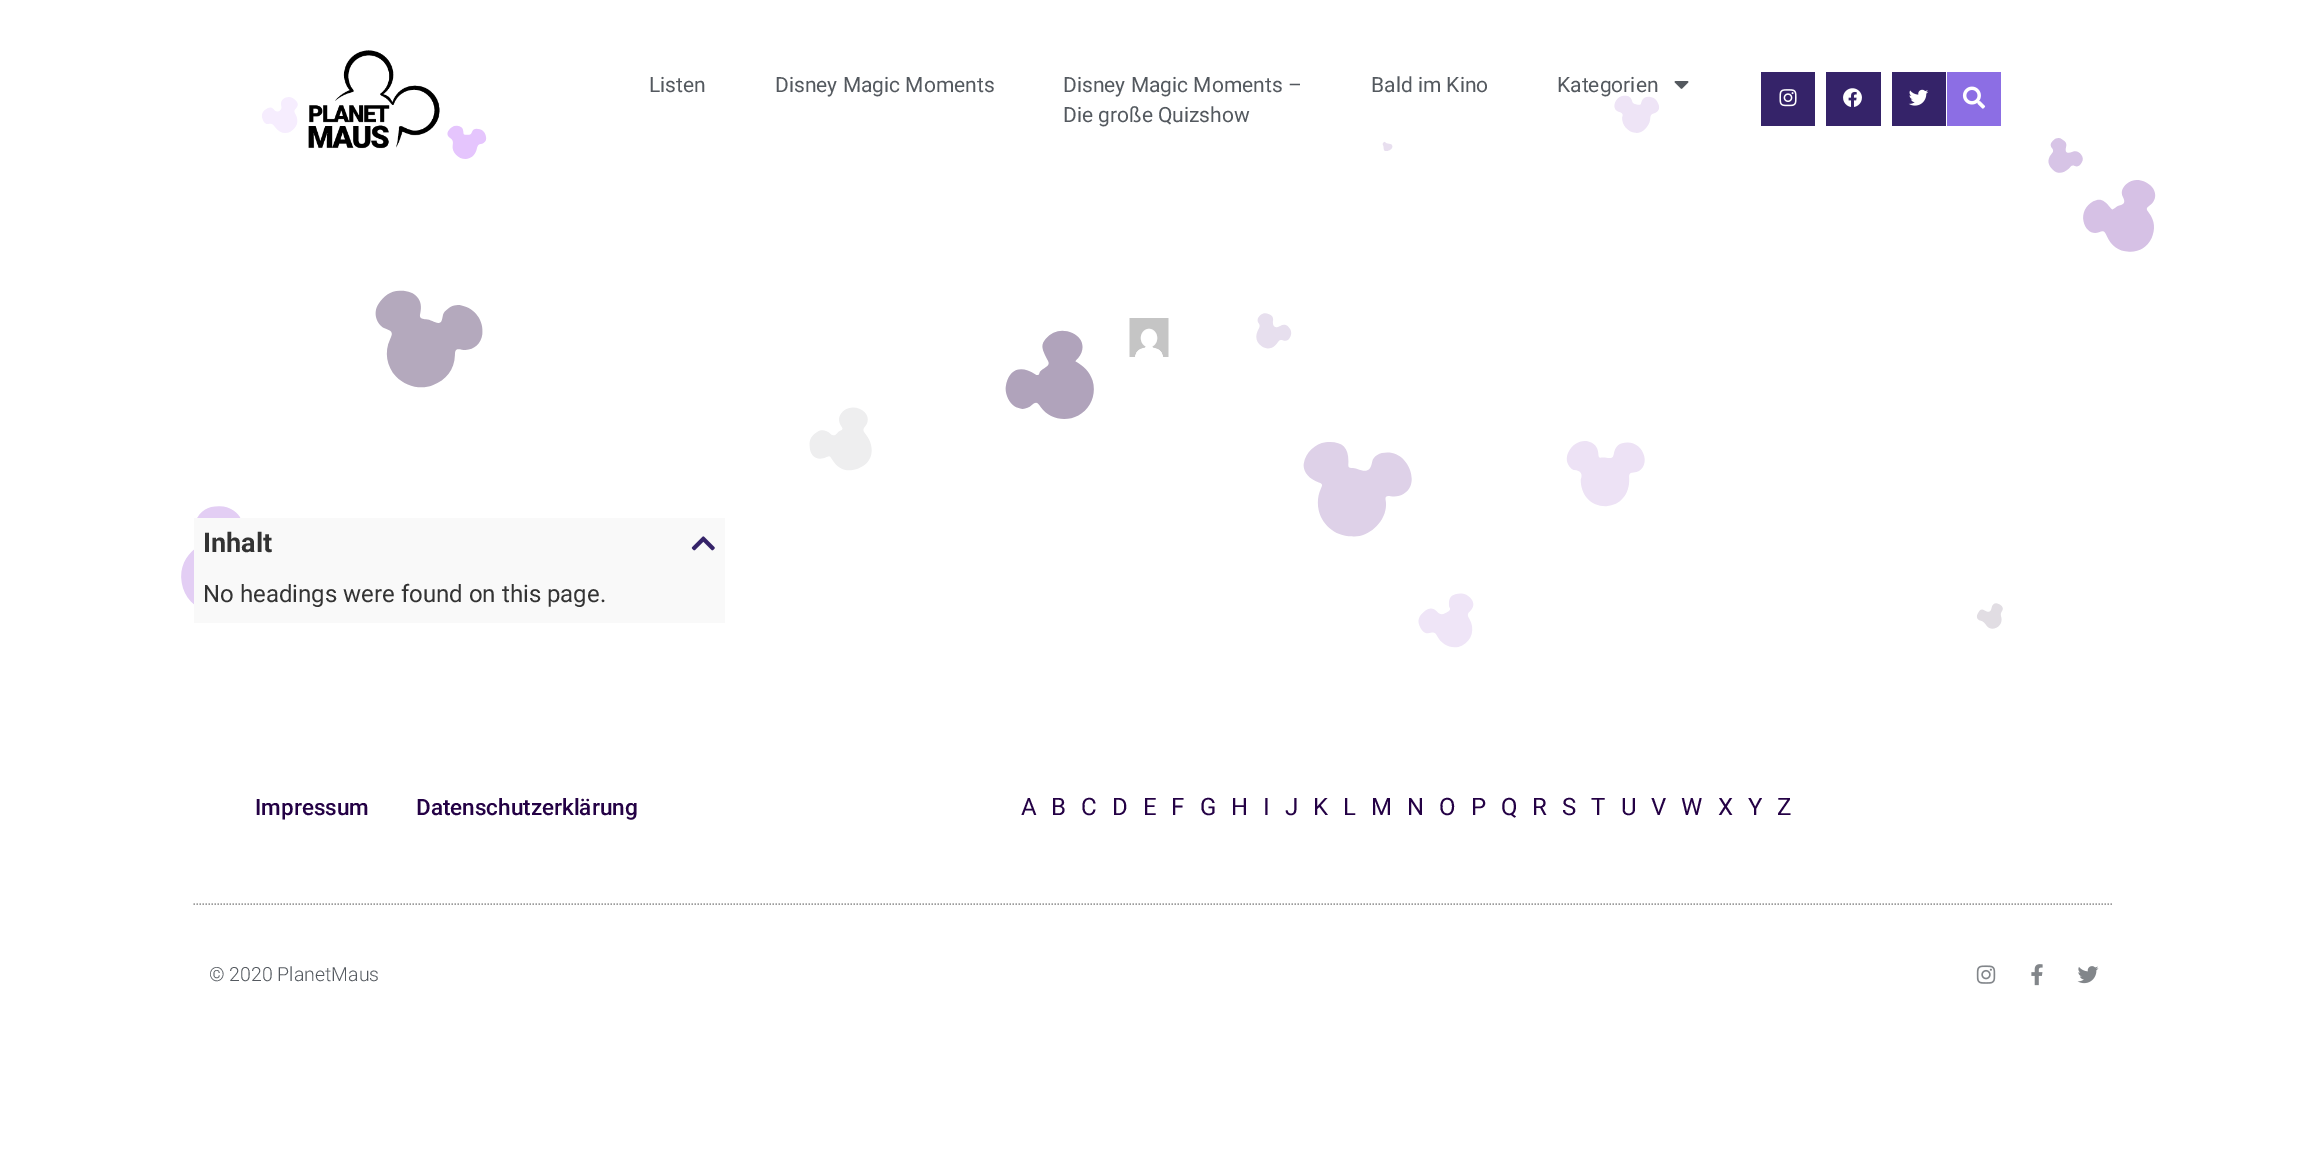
%!PS-Adobe-3.0
%%BoundingBox: 0 0 2306 1153
%%LanguageLevel: 3
%%Pages: 1
%%EndComments
%%BeginProlog
/setink { dup -16 bitshift 255 div exch dup -8 bitshift 255 and 255 div exch 255 and 255 div setrgbcolor } def
/usefont { [ exch dup neg 0 0 3 -1 roll 0 0 ] selectfont } def
/drawimage { 5 dict begin { /h /w /y /x /name } { exch def } forall
  gsave x y translate w h scale
  w h 8 [w 0 0 h 0 0] name (r) file false 3 colorimage grestore end } def
%%EndProlog
%%BeginSetup
<< /PageSize [2306 1153] >> setpagedevice
%%EndSetup
%%Page: 1 1
0 1153 translate 1 -1 scale
4 setmiterlimit
16#FFFFFF setink
0 0 2306 1153 rectfill
(img1.raw) 181 95 1975 553 drawimage
(img2.raw) 308 50 132 99 drawimage
/Roboto-Regular 21 usefont
16#54595F setink
[
    [(Listen) 649 92]
    [(Disney Magic Moments) 775 92]
    [(Disney Magic Moments –) 1063 92]
    [(Die große Quizshow) 1063 122]
    [(Bald im Kino) 1371 92]
    [(Kategorien) 1557 92]
] { aload pop moveto show } forall
(img3.raw) 1674 81 15 8 drawimage
16#352369 setink
1761 72 54 54 rectfill
(img4.raw) 1779 89 18 18 drawimage
1826 72 55 54 rectfill
(img5.raw) 1843 88 19 19 drawimage
1892 72 54 54 rectfill
(img6.raw) 1908 89 21 17 drawimage
16#8C6EE4 setink
1947 72 54 54 rectfill
(img7.raw) 1962 86 24 23 drawimage
(img8.raw) 1129 318 40 39 drawimage
16#F9F9F9 setink
194 518 531 105 rectfill
/Roboto-Bold 27 usefont
16#333333 setink
203 552 moveto (Inhalt) show
(img9.raw) 691 536 24 15 drawimage
/Roboto-Regular 24 usefont
203 602 moveto (No headings were found on this page.) show
16#9B9B9B setink
1.5 setlinewidth
[1.5 1.5] 0 setdash
193.5 904 moveto 2113.5 904 lineto stroke
/Roboto-Medium 22.5 usefont
16#240145 setink
255 815 moveto (Impressum) show
416 815 moveto (Datenschutzerklärung) show
/Roboto-Regular 24 usefont
[
    [(A) 1021 815]
    [(B) 1051 815]
    [(C) 1081 815]
    [(D) 1112 815]
    [(E) 1143 815]
    [(F) 1171 815]
    [(G) 1200 815]
    [(H) 1231 815]
    [(I) 1263 815]
    [(J) 1285 815]
    [(K) 1313 815]
    [(L) 1343 815]
    [(M) 1371 815]
    [(N) 1407 815]
    [(O) 1439 815]
    [(P) 1471 815]
    [(Q) 1501 815]
    [(R) 1532 815]
    [(S) 1562 815]
    [(T) 1591 815]
    [(U) 1621 815]
    [(V) 1651 815]
    [(W) 1681 815]
    [(X) 1718 815]
    [(Y) 1748 815]
    [(Z) 1777 815]
] { aload pop moveto show } forall
/Roboto-Light 19.5 usefont
16#54595F setink
209 981 moveto (© 2020 PlanetMaus) show
(img10.raw) 1976 965 20 19 drawimage
(img11.raw) 2031 964 12 22 drawimage
(img12.raw) 2077 966 22 18 drawimage
showpage
%%EOF
